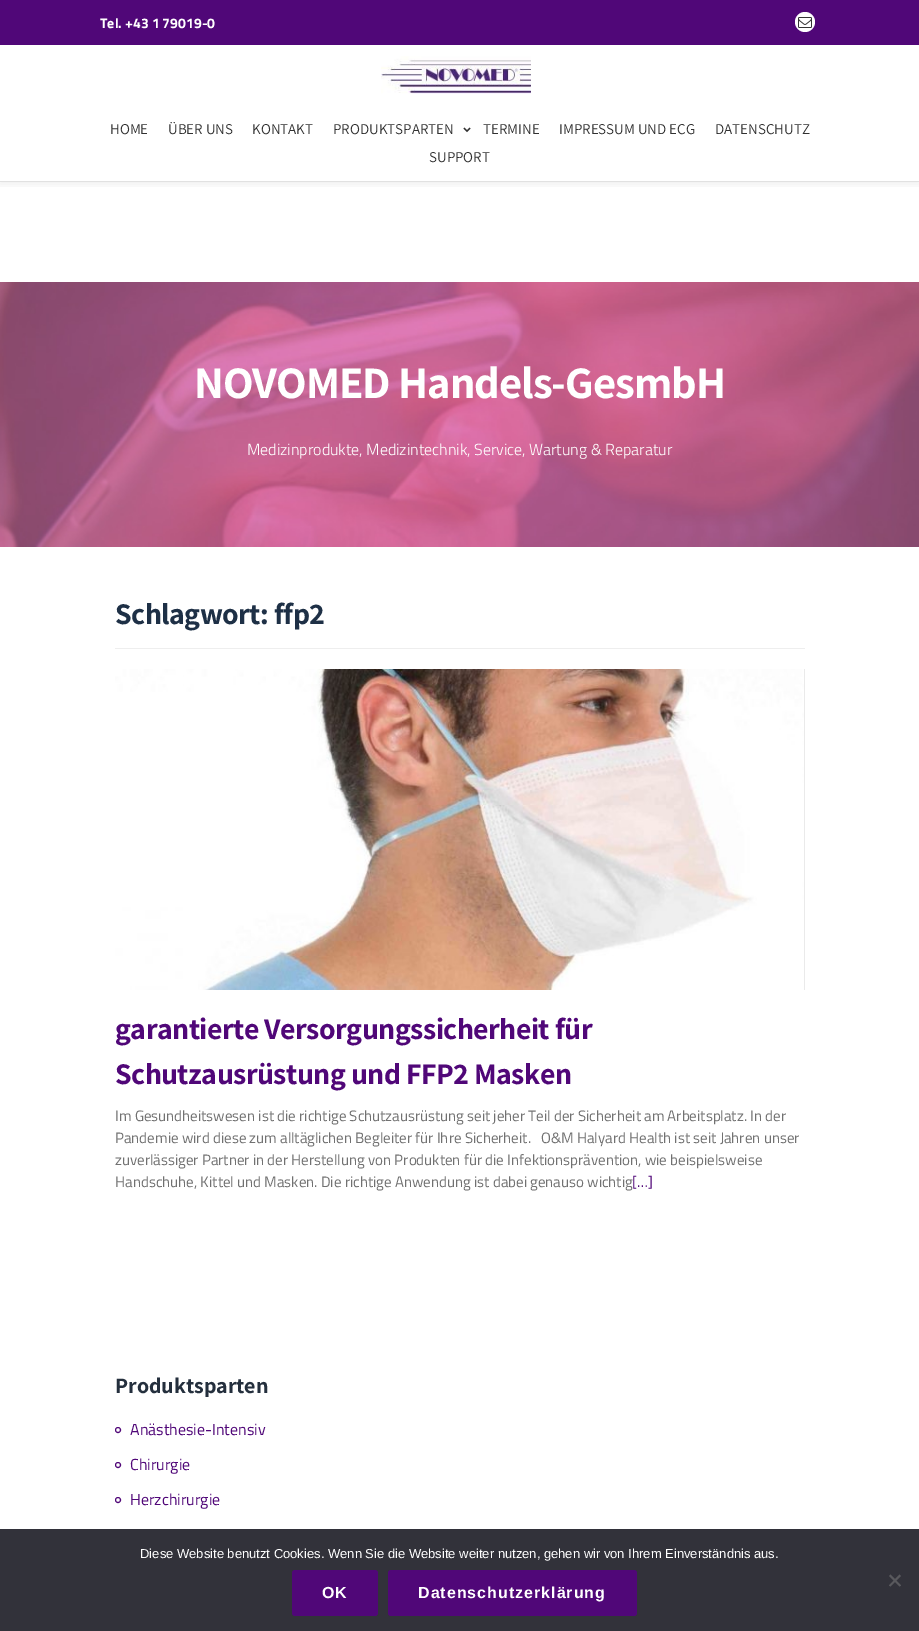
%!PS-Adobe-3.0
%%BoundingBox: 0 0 919 1631
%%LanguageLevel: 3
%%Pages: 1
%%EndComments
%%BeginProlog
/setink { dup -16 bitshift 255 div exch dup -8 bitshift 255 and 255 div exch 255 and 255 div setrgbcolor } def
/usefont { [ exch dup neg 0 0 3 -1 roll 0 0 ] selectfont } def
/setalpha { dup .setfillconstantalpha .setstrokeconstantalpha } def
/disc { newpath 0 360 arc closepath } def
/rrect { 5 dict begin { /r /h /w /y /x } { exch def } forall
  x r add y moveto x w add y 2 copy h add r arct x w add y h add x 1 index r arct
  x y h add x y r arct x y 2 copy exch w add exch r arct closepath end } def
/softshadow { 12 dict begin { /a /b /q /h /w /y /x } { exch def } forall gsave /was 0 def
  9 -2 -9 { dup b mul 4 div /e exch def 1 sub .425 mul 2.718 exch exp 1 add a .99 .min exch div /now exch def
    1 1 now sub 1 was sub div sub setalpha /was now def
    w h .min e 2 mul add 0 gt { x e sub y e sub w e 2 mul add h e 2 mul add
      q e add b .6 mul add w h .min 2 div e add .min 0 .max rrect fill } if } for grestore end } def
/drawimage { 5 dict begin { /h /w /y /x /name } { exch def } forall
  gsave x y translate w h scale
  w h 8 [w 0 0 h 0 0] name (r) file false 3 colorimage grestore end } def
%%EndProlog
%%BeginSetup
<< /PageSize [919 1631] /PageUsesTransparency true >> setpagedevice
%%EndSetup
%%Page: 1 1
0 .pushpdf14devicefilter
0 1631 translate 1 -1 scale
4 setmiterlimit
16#FFFFFF setink
0 0 919 1631 rectfill
gsave
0 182 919 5 rectclip
16#323232 setink
0 2 919 182 0 4 0.08 softshadow
grestore
16#E1E1E1 setink
0 181 919 1 rectfill
16#500778 setink
0 0 919 45 rectfill
/TitilliumWeb-Bold 14 usefont
16#FFFFFF setink
100 28 moveto (Tel. +43 1 79019-0) show
805 22 10 disc fill
(img1.raw) 798 17 14 11 drawimage
(img2.raw) 381 56 150 38 drawimage
/Assistant-Regular 15 usefont
16#313131 setink
[
    [(HOME) 110 134]
    [(ÜBER UNS) 168 134]
    [(KONTAKT) 252 134]
    [(PRODUKTSPARTEN) 333 134]
] { aload pop moveto show } forall
(img3.raw) 463 127 8 6 drawimage
[
    [(TERMINE) 483 134]
    [(IMPRESSUM UND ECG) 559 134]
    [(DATENSCHUTZ) 715 134]
    [(SUPPORT) 429 162]
] { aload pop moveto show } forall
(img4.raw) 0 282 919 265 drawimage
/Assistant-Bold 45 usefont
16#FFFFFF setink
194 398 moveto -1 0 (NOVOMED Handels-GesmbH) ashow
/TitilliumWeb-Light 16 usefont
247 455 moveto (Medizinprodukte, Medizintechnik, Service, Wartung & Reparatur) show
16#EEEEEE setink
115 648 690 1 rectfill
/Assistant-Bold 30 usefont
16#1E3046 setink
115 624 moveto -0.5 0 (Schlagwort: ffp2) ashow
16#EAEAEA setink
804 669 1 321 rectfill
(img5.raw) 115 669 689 321 drawimage
16#500778 setink
115 1039 moveto -0.5 0 (garantierte Versorgungssicherheit für) ashow
115 1084 moveto -0.5 0 (Schutzausrüstung und FFP2 Masken) ashow
/TitilliumWeb-Regular 15 usefont
16#717171 setink
[
    [(Im Gesundheitswesen ist die richtige Schutzausrüstung seit jeher Teil der Sicherheit am Arbeitsplatz. In der) 115 1121]
    [(Pandemie wird diese zum alltäglichen Begleiter für Ihre Sicherheit.   O&M Halyard Health ist seit Jahren unser) 115 1143]
    [(zuverlässiger Partner in der Herstellung von Produkten für die Infektionsprävention, wie beispielsweise) 115 1165]
    [(Handschuhe, Kittel und Masken. Die richtige Anwendung ist dabei genauso wichtig) 115 1187]
] { aload pop moveto show } forall
16#500778 setink
632 1187 moveto ([…]) show
/Assistant-Bold 22 usefont
16#242F3D setink
115 1393 moveto (Produktsparten) show
16#500778 setink
118 1430 2.5 disc stroke
/TitilliumWeb-Regular 16 usefont
130 1435 moveto (Anästhesie-Intensiv) show
118 1465 2.5 disc stroke
130 1470 moveto (Chirurgie) show
118 1500 2.5 disc stroke
130 1505 moveto (Herzchirurgie) show
16#32323A setink
0 1529 919 102 rectfill
/LiberationSans-Regular 13 usefont
16#FFFFFF setink
140 1558 moveto (Diese Website benutzt Cookies. Wenn Sie die Website weiter nutzen, gehen wir von Ihrem Einverständnis aus.) show
16#59595D setink
899.5 1574.5 moveto 901 1576 lineto 890.5 1586.5 lineto 889 1585.5 lineto closepath fill
889 1576 moveto 890.5 1574.5 lineto 901 1585.5 lineto 899.5 1586.5 lineto closepath fill
16#500778 setink
292 1570 86 46 3 rrect fill
/LiberationSans-Bold 16 usefont
16#FFFFFF setink
322 1598 moveto 1 0 (OK) ashow
16#500778 setink
388 1570 249 46 3 rrect fill
16#FFFFFF setink
418 1598 moveto 1 0 (Datenschutzerklärung) ashow
.poppdf14devicefilter showpage
%%EOF
